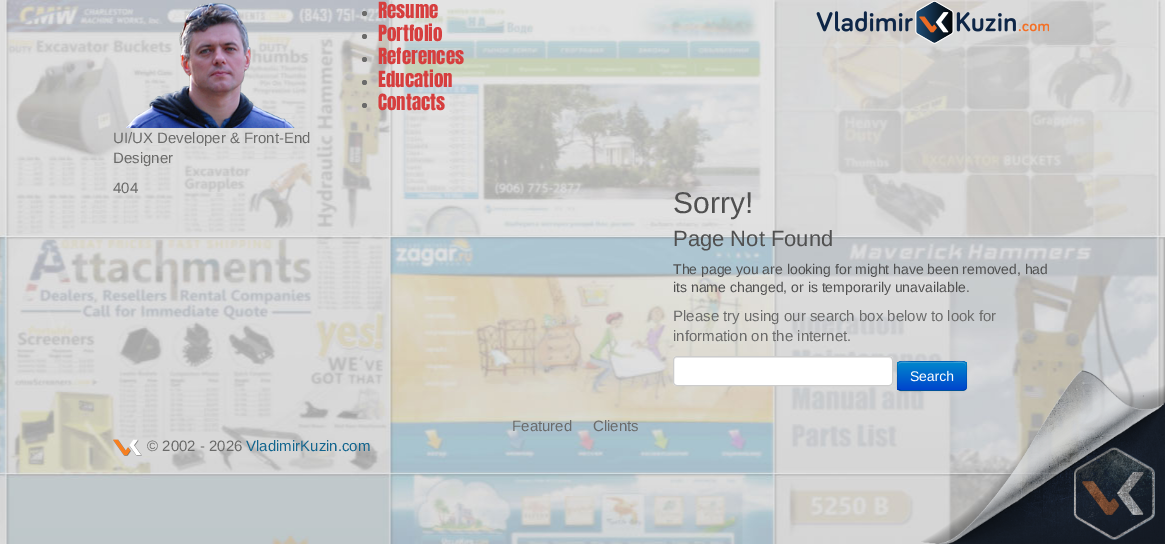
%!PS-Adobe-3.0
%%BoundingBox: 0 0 1165 544
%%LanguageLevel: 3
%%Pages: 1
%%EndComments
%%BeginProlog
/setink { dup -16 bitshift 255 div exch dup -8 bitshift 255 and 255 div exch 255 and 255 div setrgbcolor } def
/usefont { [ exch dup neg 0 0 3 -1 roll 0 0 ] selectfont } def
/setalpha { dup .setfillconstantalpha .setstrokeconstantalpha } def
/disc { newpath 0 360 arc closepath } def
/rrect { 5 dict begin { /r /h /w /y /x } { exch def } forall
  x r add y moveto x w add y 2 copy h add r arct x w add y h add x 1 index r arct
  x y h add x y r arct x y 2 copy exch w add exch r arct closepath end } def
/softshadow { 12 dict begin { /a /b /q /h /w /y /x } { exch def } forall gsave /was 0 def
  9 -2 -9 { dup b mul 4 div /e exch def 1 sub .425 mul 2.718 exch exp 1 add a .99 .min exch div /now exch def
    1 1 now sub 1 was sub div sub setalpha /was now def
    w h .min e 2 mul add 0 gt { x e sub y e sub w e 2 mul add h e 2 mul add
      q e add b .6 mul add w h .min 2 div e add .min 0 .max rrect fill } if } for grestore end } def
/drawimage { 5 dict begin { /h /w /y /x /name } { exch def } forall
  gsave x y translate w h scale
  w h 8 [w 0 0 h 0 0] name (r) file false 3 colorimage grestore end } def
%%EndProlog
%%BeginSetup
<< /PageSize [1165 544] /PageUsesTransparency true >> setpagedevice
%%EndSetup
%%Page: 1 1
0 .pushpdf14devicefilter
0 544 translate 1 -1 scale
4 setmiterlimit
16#FFFFFF setink
0 0 1165 544 rectfill
(img1.raw) 0 0 1165 544 drawimage
16#6B6B6A setink
364.5 13.5 2.5 disc fill
/Anton-Regular 19 usefont
16#D63E3E setink
378 18 moveto (Resume) show
16#6B6B6A setink
364.5 36.5 2.5 disc fill
16#D63E3E setink
378 41 moveto (Portfolio) show
16#6B6B6A setink
364.5 59.5 2.5 disc fill
16#D63E3E setink
378 64 moveto (References) show
16#6B6B6A setink
364.5 82.5 2.5 disc fill
16#D63E3E setink
378 87 moveto (Education) show
16#6B6B6A setink
364.5 105.5 2.5 disc fill
16#D63E3E setink
378 110 moveto (Contacts) show
(img2.raw) 816 1 233 43 drawimage
(img3.raw) 126 2 169 126 drawimage
/LiberationSans-Regular 15 usefont
16#6B6B6A setink
[
    [(UI/UX Developer & Front-End) 113 143]
    [(Designer) 113 163]
    [(404) 113 193]
] { aload pop moveto show } forall
/LiberationSans-Regular 30 usefont
16#505050 setink
673 213 moveto (Sorry!) show
/LiberationSans-Regular 22 usefont
673 246 moveto (Page Not Found) show
/LiberationSans-Regular 14 usefont
673 274 moveto (The page you are looking for might have been removed, had) show
673 292 moveto (its name changed, or is temporarily unavailable.) show
/LiberationSans-Regular 15 usefont
16#6B6B6A setink
673 321 moveto (Please try using our search box below to look for) show
673 341 moveto (information on the internet.) show
16#FFFFFF setink
673 356 220 30 4 rrect fill
16#ECECEC setink
677 358 moveto 889 358 lineto 891 358 892 359 892 361 curveto 892 360 lineto 892 358 891 357 889 357 curveto 677 357 lineto 675 357 674 358 674 360 curveto 674 361 lineto 674 359 675 358 677 358 curveto closepath fill
16#CCCCCC setink
673.5 356.5 219 29 3.5 rrect stroke
16#000000 setink
897 362 70 30 4 1 0.05 softshadow
16#006DCC setink
897 361 70 30 4 rrect fill
gsave
897 361 70 30 4 rrect clip newpath
gsave 897 362 moveto 967 362 lineto 967 390 lineto 897 390 lineto closepath clip newpath
<< /ShadingType 2 /ColorSpace /DeviceRGB /Coords [932 362 932 390] /Extend [true true] /Function << /FunctionType 2 /Domain [0 1] /C0 [0 0.533 0.8] /C1 [0 0.267 0.8] /N 1 >> >> shfill grestore
grestore
0.2 setalpha
16#FFFFFF setink
901 363 moveto 963 363 lineto 965 363 966 364 966 366 curveto 966 359 957 362 953 362 curveto 911 362 lineto 907 362 898 359 898 366 curveto 898 364 899 363 901 363 curveto closepath fill
0.25 setalpha
16#000000 setink
965.5 389.5 moveto 963.5 390.5 lineto 900.5 390.5 lineto 898.5 389.5 lineto stroke
0.1 setalpha
898.5 389.5 moveto 896.5 387.5 897.5 379 897.5 376 curveto 897.5 360 895 361.5 911.5 361.5 curveto 952.5 361.5 lineto 969 361.5 966.5 360 966.5 376 curveto 966.5 379 967.5 387.5 965.5 389.5 curveto stroke
/LiberationSans-Regular 14 usefont
1 setalpha
16#FFFFFF setink
910 381 moveto (Search) show
/LiberationSans-Regular 15 usefont
16#6B6B6A setink
512 431 moveto (Featured) show
593 431 moveto (Clients) show
(img4.raw) 113 439 29 17 drawimage
147 451 moveto (© 2002 - 2026) show
16#13658E setink
246 451 moveto (VladimirKuzin.com) show
(img5.raw) 921 370 244 174 drawimage
.poppdf14devicefilter showpage
%%EOF
